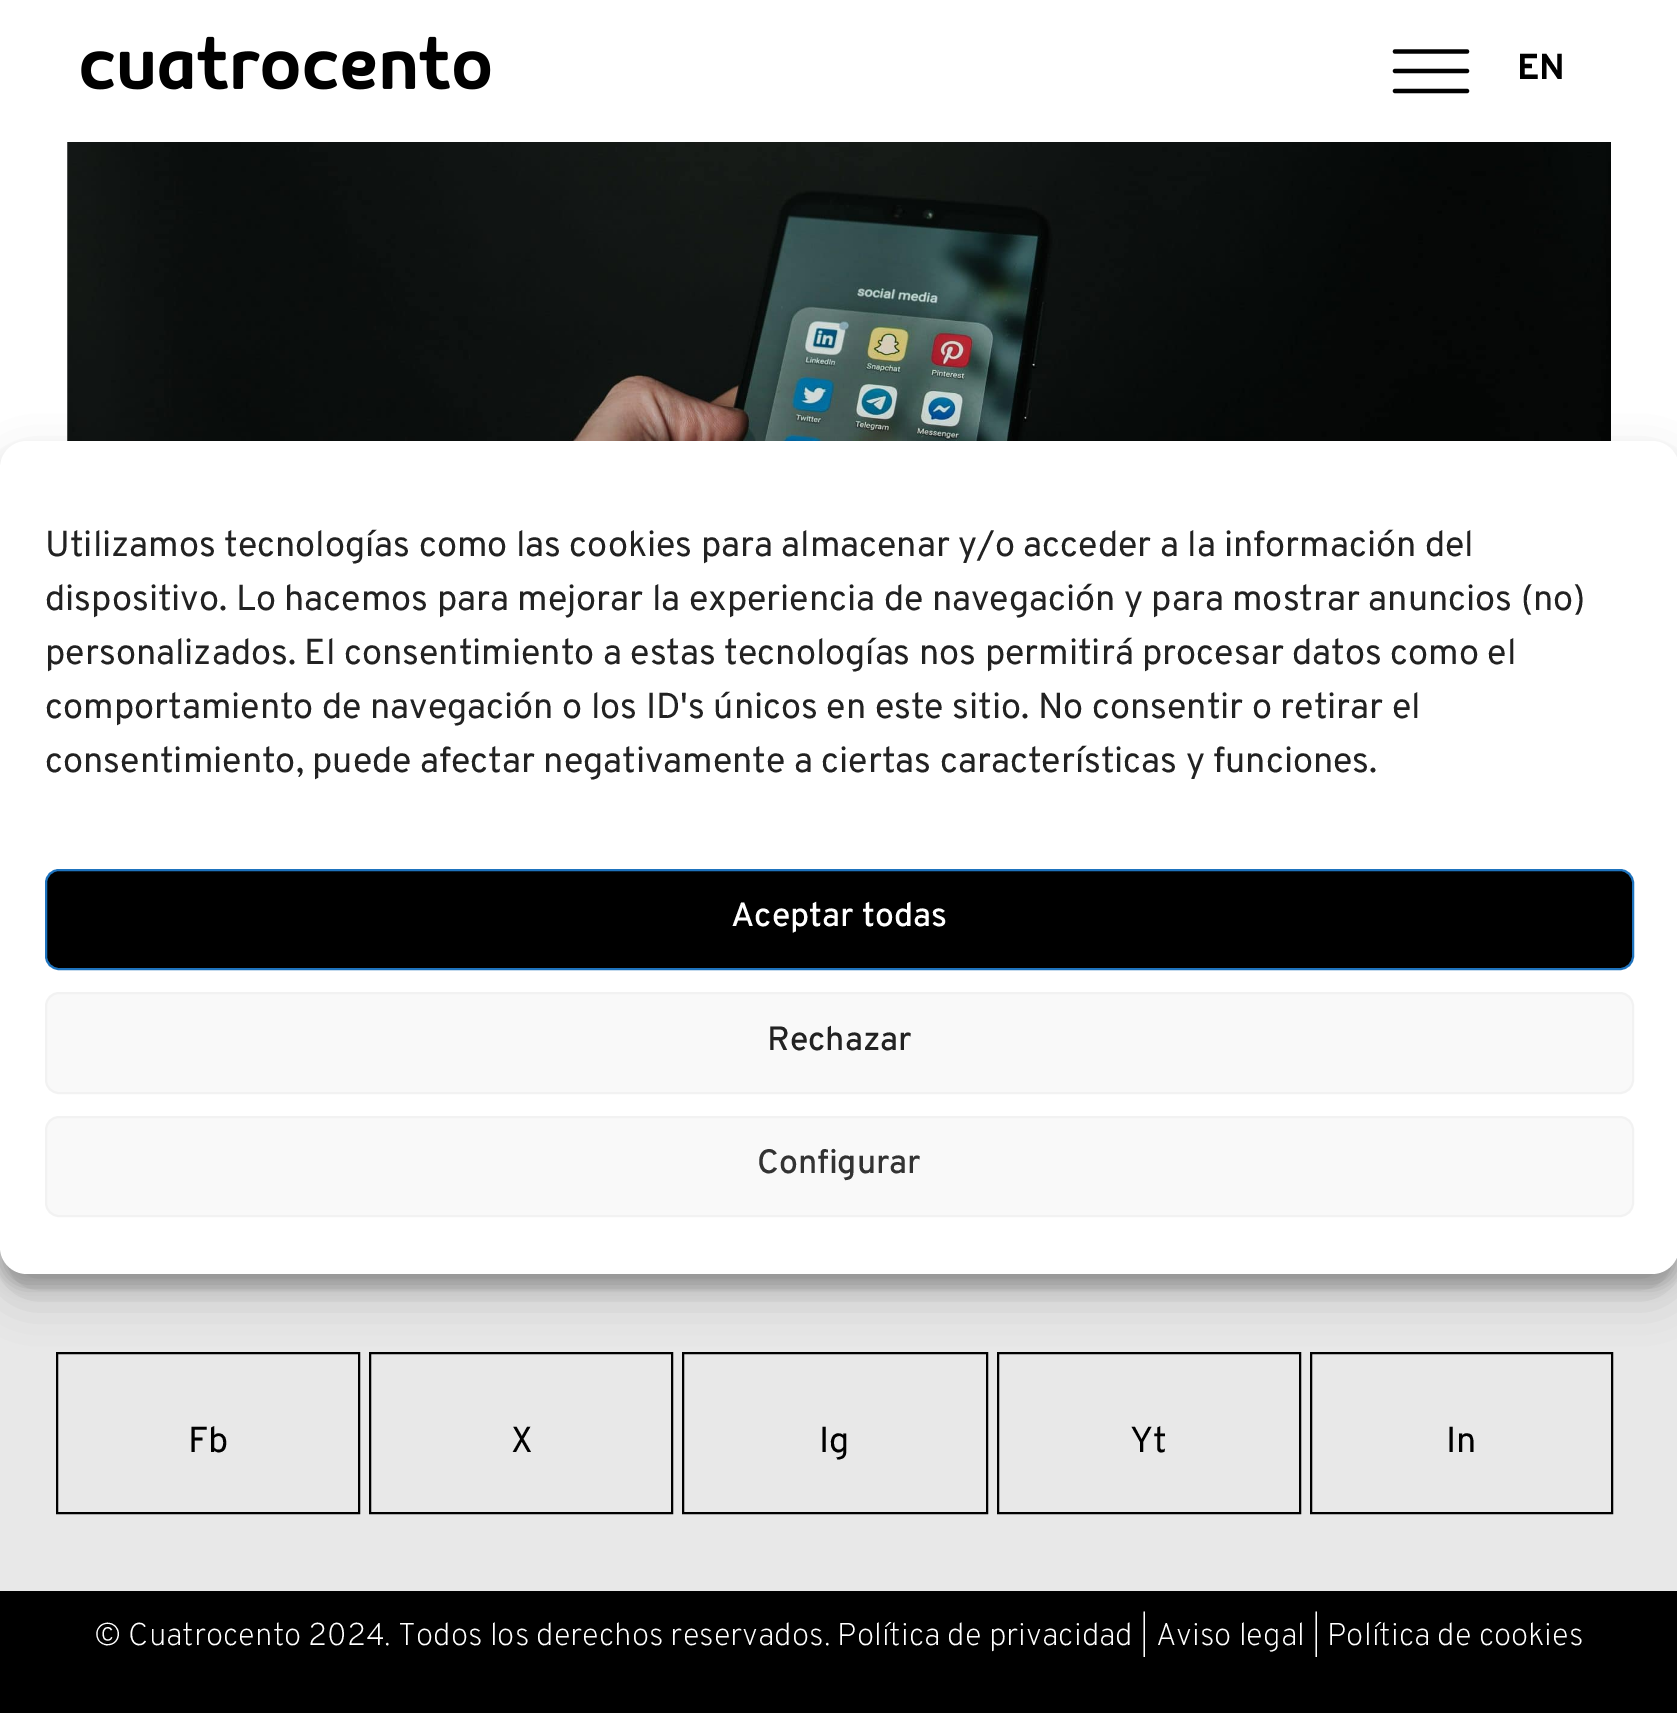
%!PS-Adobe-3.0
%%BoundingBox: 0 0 1677 1713
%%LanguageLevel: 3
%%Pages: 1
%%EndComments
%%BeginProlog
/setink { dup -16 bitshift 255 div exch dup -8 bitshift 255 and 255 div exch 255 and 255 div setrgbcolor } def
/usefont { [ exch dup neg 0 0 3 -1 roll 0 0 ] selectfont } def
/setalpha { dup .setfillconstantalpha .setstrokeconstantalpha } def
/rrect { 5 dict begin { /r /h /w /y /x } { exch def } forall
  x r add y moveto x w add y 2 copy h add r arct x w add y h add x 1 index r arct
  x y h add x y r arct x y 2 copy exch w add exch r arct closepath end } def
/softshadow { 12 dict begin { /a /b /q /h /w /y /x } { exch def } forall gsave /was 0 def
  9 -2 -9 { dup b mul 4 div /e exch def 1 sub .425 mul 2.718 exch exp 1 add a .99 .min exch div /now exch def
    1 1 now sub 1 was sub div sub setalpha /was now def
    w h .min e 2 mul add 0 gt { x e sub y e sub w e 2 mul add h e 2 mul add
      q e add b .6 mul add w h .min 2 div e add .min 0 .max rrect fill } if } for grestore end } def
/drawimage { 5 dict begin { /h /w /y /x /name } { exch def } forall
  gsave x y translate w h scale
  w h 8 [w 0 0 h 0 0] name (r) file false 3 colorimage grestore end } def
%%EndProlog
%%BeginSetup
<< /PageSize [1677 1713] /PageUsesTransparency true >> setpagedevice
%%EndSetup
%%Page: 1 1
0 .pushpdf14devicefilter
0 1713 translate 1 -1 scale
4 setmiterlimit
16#FFFFFF setink
0 0 1677 1713 rectfill
(img1.raw) 81 36 410 54 drawimage
16#000000 setink
4.3 setlinewidth
1 setlinecap
1 setlinejoin
1395 51.5 moveto 1467 51.5 lineto stroke
1395 71 moveto 1467 71 lineto stroke
1395 91 moveto 1467 91 lineto stroke
/Overpass-Bold 36 usefont
1517 79 moveto (EN) show
(img2.raw) 67 142 1 299 drawimage
(img3.raw) 67 142 1544 299 drawimage
16#E8E8E8 setink
0 1247 1677 344 rectfill
16#000000 setink
0 455 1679 832 27 7 0.23 softshadow
2 setlinewidth
0 setlinecap
0 setlinejoin
57 1353 302 160 rectstroke
370 1353 302 160 rectstroke
683 1353 304 160 rectstroke
998 1353 302 160 rectstroke
1311 1353 301 160 rectstroke
0 464 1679 832 27 22.5 0.19 softshadow
16#FFFFFF setink
0 441 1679 833 27 rrect fill
/Overpass-Regular 36 usefont
16#222222 setink
[
    [(Utilizamos tecnologías como las cookies para almacenar y/o acceder a la información del) 45 556]
    [(dispositivo. Lo hacemos para mejorar la experiencia de navegación y para mostrar anuncios \(no\)) 45 610]
    [(personalizados. El consentimiento a estas tecnologías nos permitirá procesar datos como el) 45 664]
    [(comportamiento de navegación o los ID's únicos en este sitio. No consentir o retirar el) 45 718]
    [(consentimiento, puede afectar negativamente a ciertas características y funciones.) 45 772]
] { aload pop moveto show } forall
16#000000 setink
46 870 1587 99 13 rrect gsave fill grestore
16#1E73BE setink
stroke
/Overpass-Medium 33.75 usefont
16#FFFFFF setink
731 926 moveto (Aceptar todas) show
16#F9F9F9 setink
46 993 1587 100 13 rrect gsave fill grestore
16#F2F2F2 setink
stroke
16#222222 setink
767 1050 moveto (Rechazar) show
16#F9F9F9 setink
46 1117 1587 99 13 rrect gsave fill grestore
16#F2F2F2 setink
stroke
16#333333 setink
757 1173 moveto (Configurar) show
/Overpass-Regular 36 usefont
16#000000 setink
[
    [(Fb) 188 1452]
    [(X) 511 1452]
    [(Ig) 819 1452]
    [(Yt) 1130 1452]
    [(In) 1446 1452]
] { aload pop moveto show } forall
0 1591 1677 122 rectfill
/Overpass-ExtraLight 31.5 usefont
16#FFFFFF setink
94 1645 moveto (© Cuatrocento 2024. Todos los derechos reservados. Política de privacidad | Aviso legal | Política de cookies) show
.poppdf14devicefilter showpage
%%EOF
